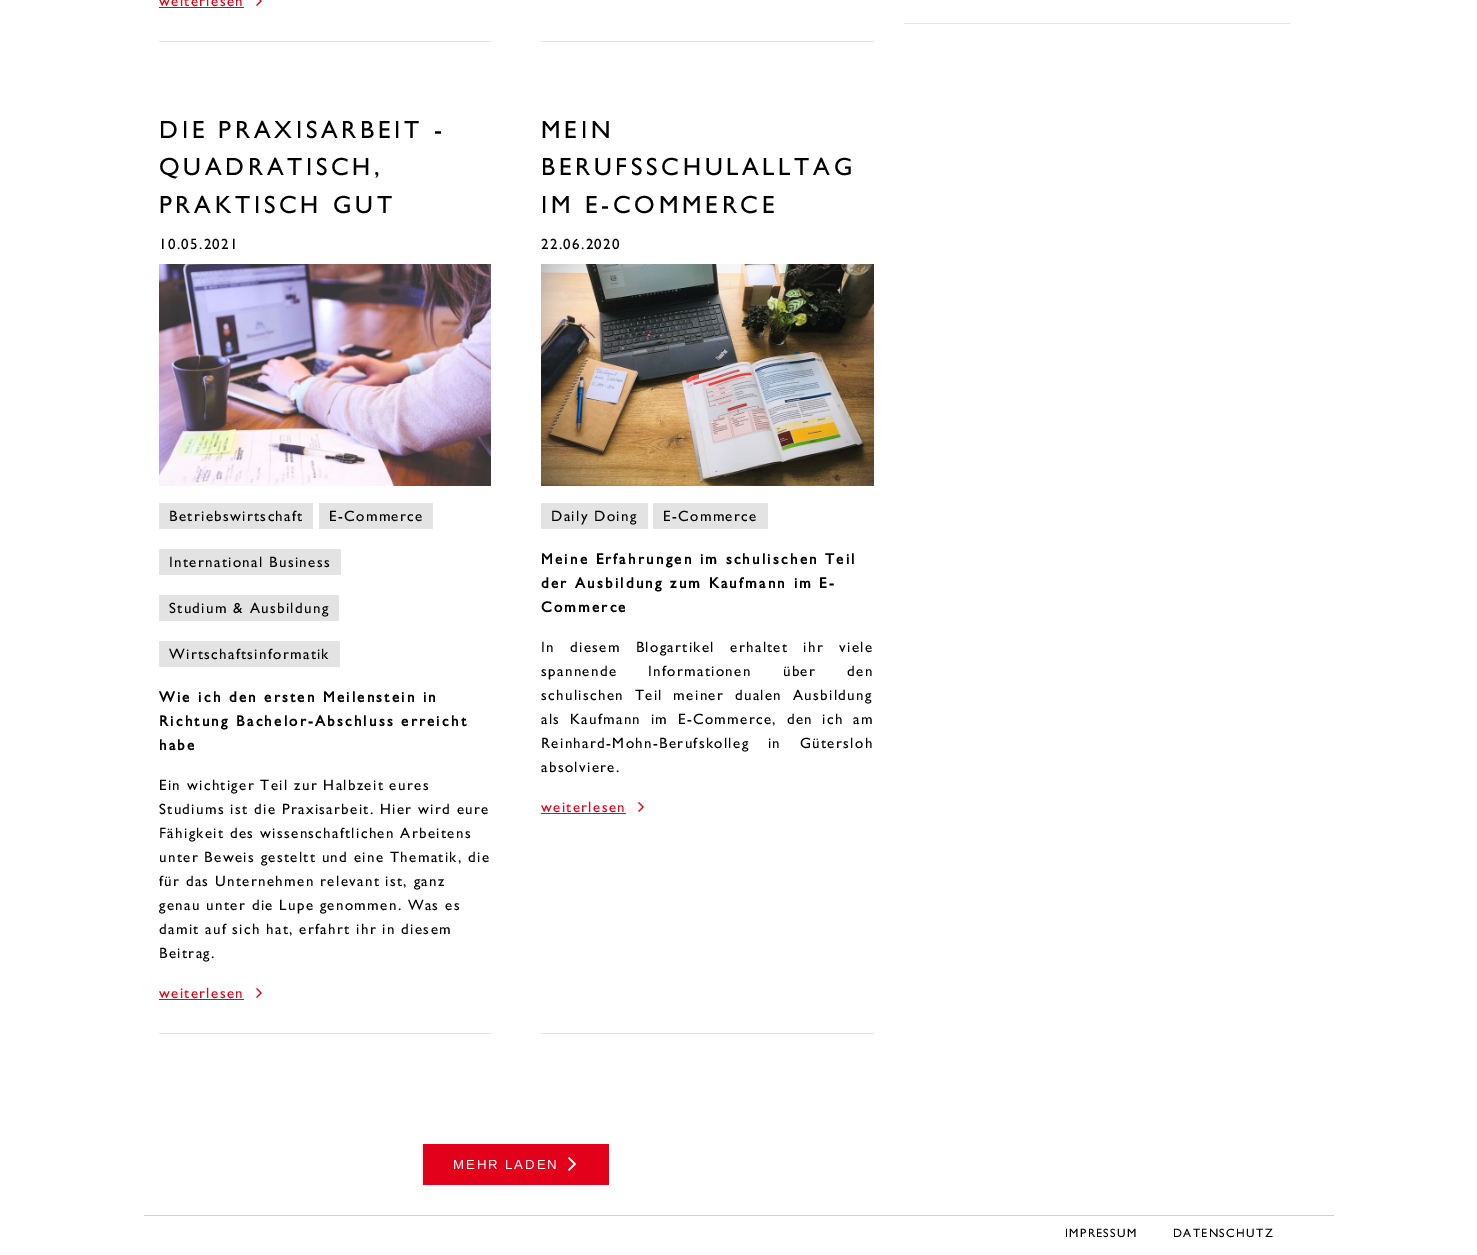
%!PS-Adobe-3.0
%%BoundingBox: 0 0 1477 1255
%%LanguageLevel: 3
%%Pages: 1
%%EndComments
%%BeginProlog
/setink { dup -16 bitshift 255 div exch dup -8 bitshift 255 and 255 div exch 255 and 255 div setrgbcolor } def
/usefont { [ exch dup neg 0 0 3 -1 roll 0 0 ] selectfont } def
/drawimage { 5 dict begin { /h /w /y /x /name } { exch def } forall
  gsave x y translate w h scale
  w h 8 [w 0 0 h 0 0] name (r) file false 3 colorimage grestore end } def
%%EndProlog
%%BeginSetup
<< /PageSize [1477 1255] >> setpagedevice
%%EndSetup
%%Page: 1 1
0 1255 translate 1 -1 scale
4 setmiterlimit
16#FFFFFF setink
0 0 1477 1255 rectfill
16#E3E3E3 setink
159 41 332 1 rectfill
/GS-Regular 15 usefont
16#E2001A setink
159 6 moveto 1.35 0 (weiterlesen) ashow
159 7 85 1 rectfill
(img1.raw) 256 0 6 6 drawimage
16#E3E3E3 setink
541 41 333 1 rectfill
159 1033 332 1 rectfill
/GS-Regular 25 usefont
16#000000 setink
159 138 moveto 3.75 0 (DIE PRAXISARBEIT -) ashow
159 175 moveto 3.75 0 (QUADRATISCH,) ashow
159 213 moveto 3.75 0 (PRAKTISCH GUT) ashow
/GS-Regular 15 usefont
159 249 moveto 1.35 0 (10.05.2021) ashow
(img2.raw) 159 264 332 222 drawimage
16#E3E3E3 setink
159 503 154 26 rectfill
16#000000 setink
169 521 moveto 1.35 0 (Betriebswirtschaft) ashow
16#E3E3E3 setink
319 503 114 26 rectfill
16#000000 setink
329 521 moveto 1.35 0 (E-Commerce) ashow
16#E3E3E3 setink
159 549 182 26 rectfill
16#000000 setink
169 567 moveto 1.35 0 (International Business) ashow
16#E3E3E3 setink
159 595 180 26 rectfill
16#000000 setink
169 613 moveto 1.35 0 (Studium & Ausbildung) ashow
16#E3E3E3 setink
159 641 181 26 rectfill
16#000000 setink
169 659 moveto 1.35 0 (Wirtschaftsinformatik) ashow
/GS-Bold 15 usefont
159 702 moveto 2.25 0 (Wie ich den ersten Meilenstein in) ashow
159 726 moveto 2.25 0 (Richtung Bachelor-Abschluss erreicht) ashow
159 750 moveto 2.25 0 (habe) ashow
/GS-Regular 15 usefont
159 790 moveto 1.35 0 (Ein wichtiger Teil zur Halbzeit eures) ashow
159 814 moveto 1.35 0 (Studiums ist die Praxisarbeit. Hier wird eure) ashow
159 838 moveto 1.35 0 (Fähigkeit des wissenschaftlichen Arbeitens) ashow
159 862 moveto 1.35 0 (unter Beweis gesteltt und eine Thematik, die) ashow
159 886 moveto 1.35 0 (für das Unternehmen relevant ist, ganz) ashow
gsave
159 765 332 208 rectclip
159 910 moveto 1.35 0 (genau unter die Lupe genommen. Was es) ashow
grestore
159 934 moveto 1.35 0 (damit auf sich hat, erfahrt ihr in diesem) ashow
159 958 moveto 1.35 0 (Beitrag.) ashow
16#E2001A setink
159 998 moveto 1.35 0 (weiterlesen) ashow
159 999 85 1 rectfill
(img3.raw) 256 988 6 10 drawimage
16#E3E3E3 setink
541 1033 333 1 rectfill
/GS-Regular 25 usefont
16#000000 setink
541 138 moveto 3.75 0 (MEIN) ashow
541 175 moveto 3.75 0 (BERUFSSCHULALLTAG) ashow
541 213 moveto 3.75 0 (IM E-COMMERCE) ashow
/GS-Regular 15 usefont
541 249 moveto 1.35 0 (22.06.2020) ashow
(img4.raw) 541 264 333 222 drawimage
16#E3E3E3 setink
541 503 107 26 rectfill
16#000000 setink
551 521 moveto 1.35 0 (Daily Doing) ashow
16#E3E3E3 setink
653 503 115 26 rectfill
16#000000 setink
663 521 moveto 1.35 0 (E-Commerce) ashow
/GS-Bold 15 usefont
541 564 moveto 2.25 0 (Meine Erfahrungen im schulischen Teil) ashow
541 588 moveto 2.25 0 (der Ausbildung zum Kaufmann im E-) ashow
541 612 moveto 2.25 0 (Commerce) ashow
/GS-Regular 15 usefont
541 652 moveto 9.5 0 32 1.35 0 (In diesem Blogartikel erhaltet ihr viele) awidthshow
541 676 moveto 25.5 0 32 1.35 0 (spannende Informationen über den) awidthshow
541 700 moveto 5 0 32 1.35 0 (schulischen Teil meiner dualen Ausbildung) awidthshow
541 724 moveto 4 0 32 1.35 0 (als Kaufmann im E-Commerce, den ich am) awidthshow
541 748 moveto 13 0 32 1.35 0 (Reinhard-Mohn-Berufskolleg in Gütersloh) awidthshow
541 772 moveto 1.35 0 (absolviere.) ashow
16#E2001A setink
541 812 moveto 1.35 0 (weiterlesen) ashow
541 813 85 1 rectfill
(img3.raw) 638 802 6 10 drawimage
423 1144 186 41 rectfill
/LiberationSans-Regular 13.25 usefont
16#FFFFFF setink
453 1169 moveto 1.9 0 (MEHR LADEN) ashow
(img5.raw) 568 1157 8 14 drawimage
16#E3E3E3 setink
904 23 386 1 rectfill
16#D1D1D1 setink
144 1215 1190 1 rectfill
/GS-Regular 12 usefont
16#000000 setink
1065 1237 moveto 1.35 0 (IMPRESSUM) ashow
1173 1237 moveto 1.35 0 (DATENSCHUTZ) ashow
showpage
%%EOF
